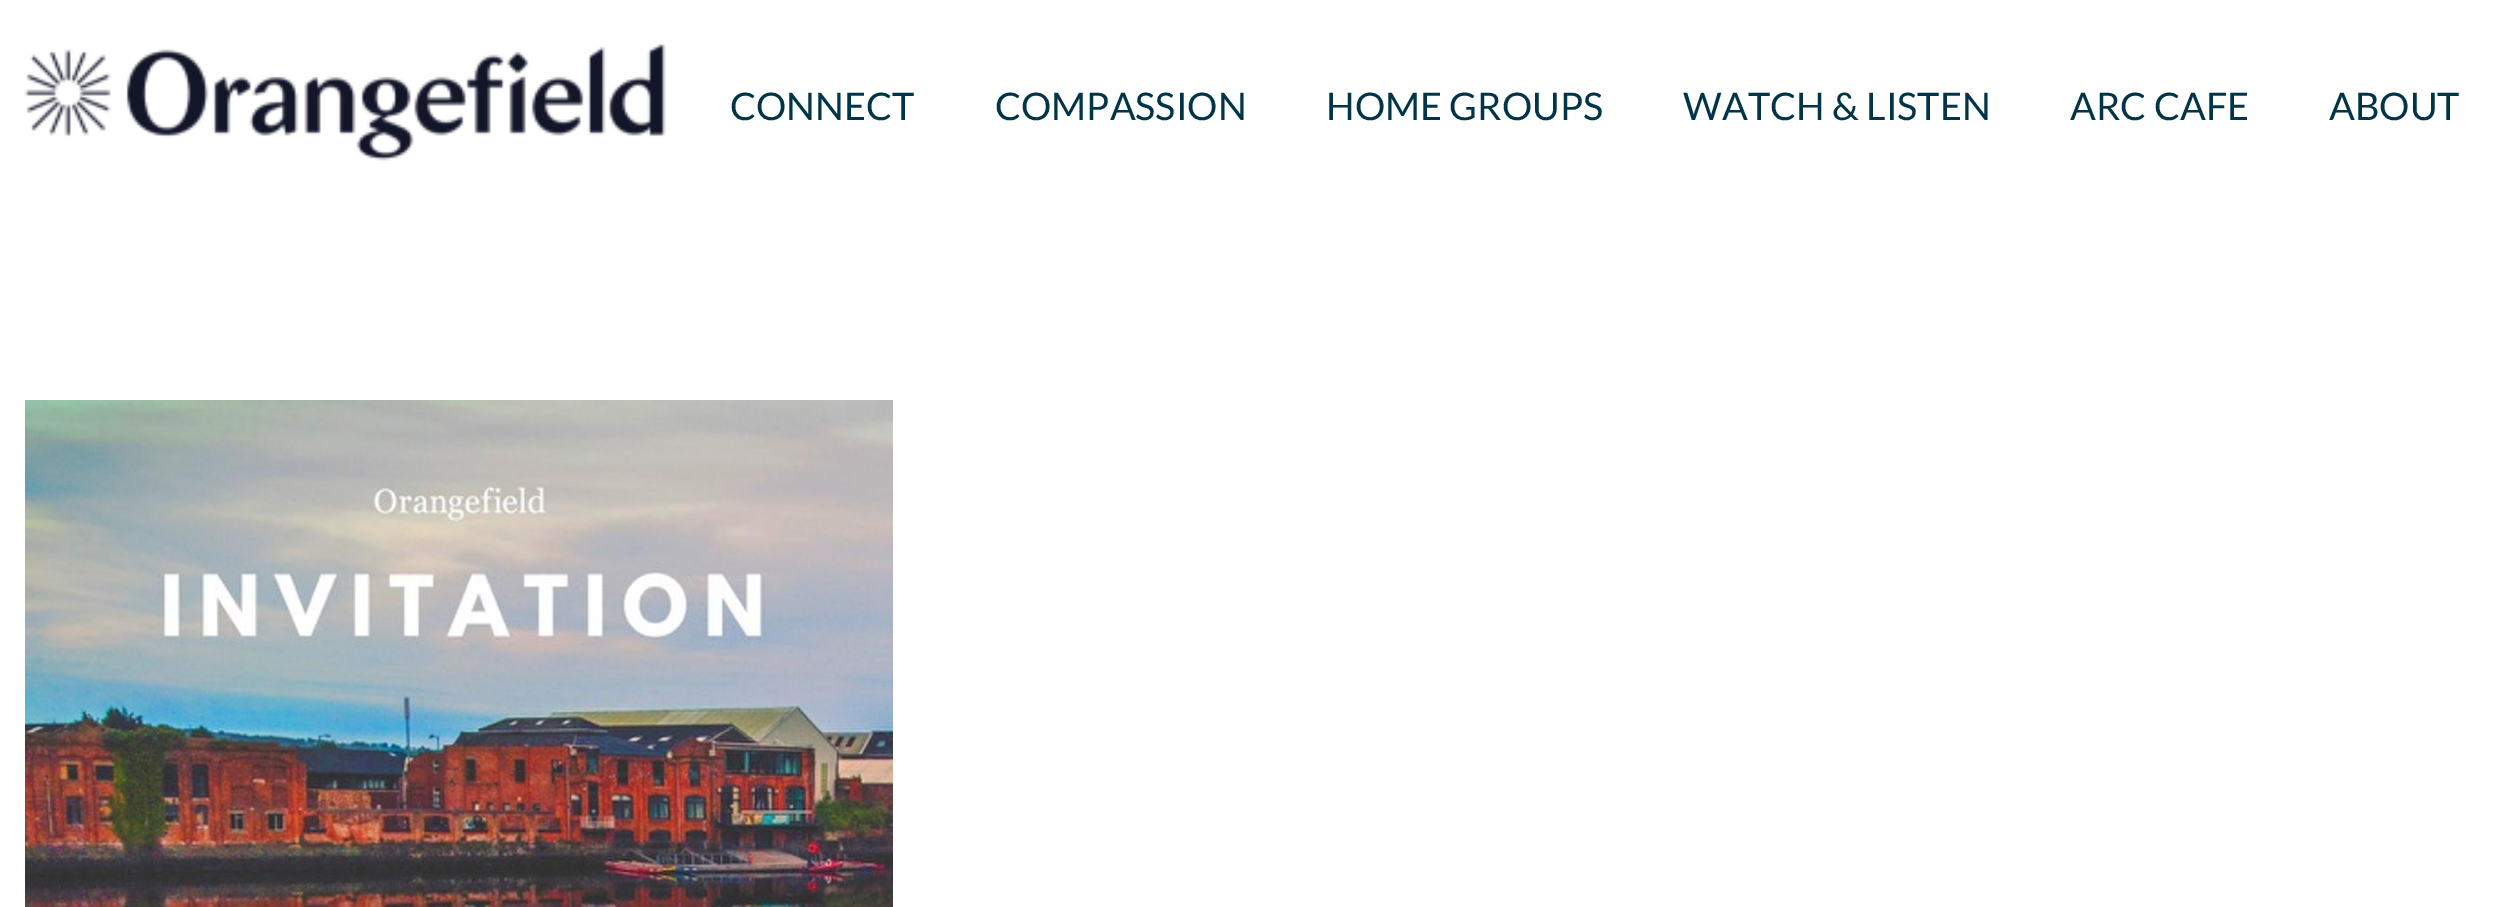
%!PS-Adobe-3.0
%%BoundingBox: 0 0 2500 907
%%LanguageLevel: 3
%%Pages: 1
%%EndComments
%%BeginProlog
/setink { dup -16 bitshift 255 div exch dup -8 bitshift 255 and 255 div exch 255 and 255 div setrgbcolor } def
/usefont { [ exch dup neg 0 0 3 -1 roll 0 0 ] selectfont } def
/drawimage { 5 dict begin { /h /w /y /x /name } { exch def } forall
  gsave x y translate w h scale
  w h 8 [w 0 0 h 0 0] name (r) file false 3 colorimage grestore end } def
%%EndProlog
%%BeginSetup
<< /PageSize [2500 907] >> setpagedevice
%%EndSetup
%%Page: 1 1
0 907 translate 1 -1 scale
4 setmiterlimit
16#FFFFFF setink
0 0 2500 907 rectfill
(img1.raw) 24 43 642 118 drawimage
/Lato-Regular 38 usefont
16#003549 setink
[
    [(CONNECT) 730 120]
    [(COMPASSION) 995 120]
    [(HOME GROUPS) 1326 120]
    [(WATCH & LISTEN) 1683 120]
    [(ARC CAFE) 2070 120]
    [(ABOUT) 2329 120]
] { aload pop moveto show } forall
(img2.raw) 25 400 868 507 drawimage
showpage
%%EOF
